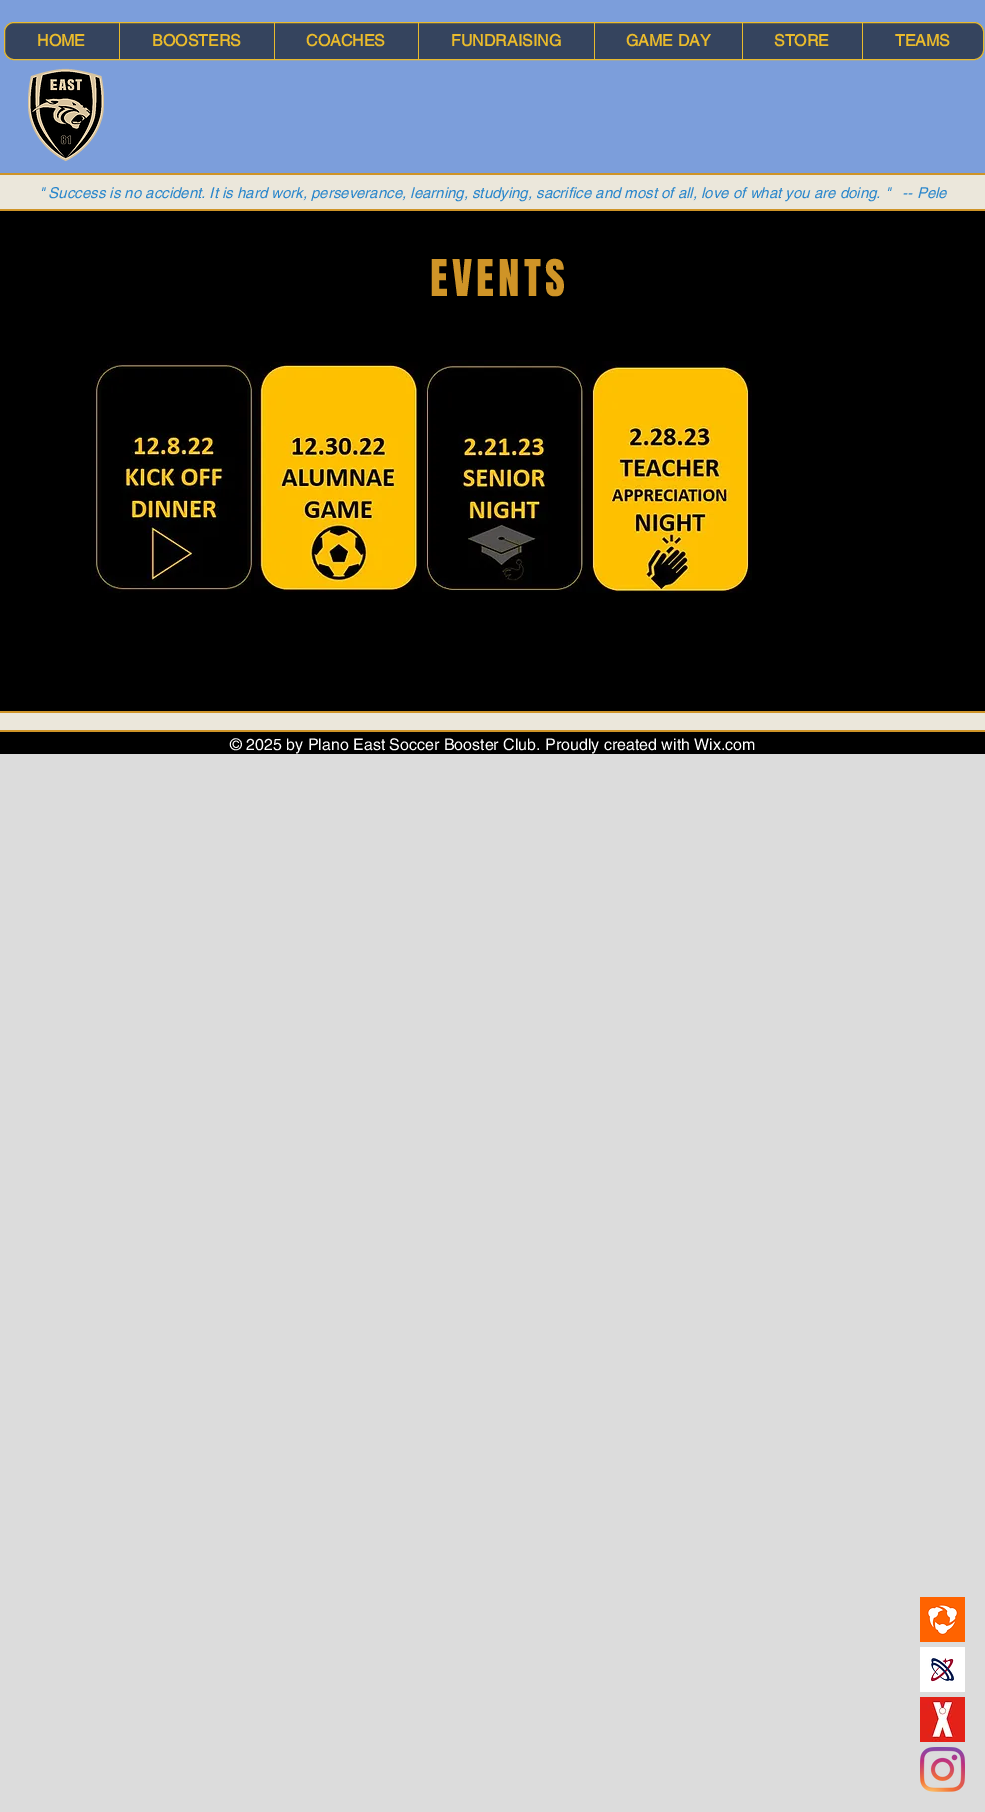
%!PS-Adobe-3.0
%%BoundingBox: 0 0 985 1812
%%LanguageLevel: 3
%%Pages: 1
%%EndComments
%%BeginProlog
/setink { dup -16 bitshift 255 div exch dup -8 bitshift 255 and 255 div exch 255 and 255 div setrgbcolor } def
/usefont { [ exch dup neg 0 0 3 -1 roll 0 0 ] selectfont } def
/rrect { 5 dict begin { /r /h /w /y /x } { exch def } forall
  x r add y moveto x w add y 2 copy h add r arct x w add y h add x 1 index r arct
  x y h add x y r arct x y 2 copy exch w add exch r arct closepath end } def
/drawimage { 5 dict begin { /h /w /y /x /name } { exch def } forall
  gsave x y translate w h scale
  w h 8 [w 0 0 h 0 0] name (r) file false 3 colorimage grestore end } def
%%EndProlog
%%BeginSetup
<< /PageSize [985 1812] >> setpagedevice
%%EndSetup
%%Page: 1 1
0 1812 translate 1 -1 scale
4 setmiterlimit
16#DCDCDC setink
0 0 985 1812 rectfill
16#CF9427 setink
0 173 985 2 rectfill
16#7C9EDB setink
0 0 985 173 rectfill
16#35445E setink
4.5 22.5 979 37 9.5 rrect gsave fill grestore
16#EABB2C setink
stroke
/helvetica-Bold 16 usefont
37 46 moveto (HOME) show
119 23 1 36 rectfill
152 46 moveto (BOOSTERS) show
274 23 1 36 rectfill
306 46 moveto (COACHES) show
418 23 1 36 rectfill
451 46 moveto (FUNDRAISING) show
594 23 1 36 rectfill
626 46 moveto (GAME DAY) show
742 23 1 36 rectfill
774 46 moveto (STORE) show
862 23 1 36 rectfill
895 46 moveto (TEAMS) show
(img1.raw) 28 68 76 94 drawimage
16#EBE7DB setink
0 175 985 34 rectfill
/helvetica-Italic 15 usefont
16#2986CC setink
39 198 moveto (" Success is no accident. It is hard work, perseverance, learning, studying, sacrifice and most of all, love of what you are doing. "   -- Pele) show
16#CF9427 setink
0 209 985 2 rectfill
16#000000 setink
0 211 985 500 rectfill
/Anton-Regular 43 usefont
16#CF9427 setink
430 296 moveto 4.25 0 (EVENTS) ashow
(img2.raw) 91 361 164 232 drawimage
(img3.raw) 254 362 166 230 drawimage
(img4.raw) 422 360 165 232 drawimage
(img5.raw) 586 361 166 232 drawimage
[
    [0 711 985 2 16#CF9427]
    [0 732 985 22 16#000000]
    [0 730 985 2 16#CF9427]
    [0 713 985 17 16#EBE7DB]
] { aload pop setink rectfill } forall
/helvetica-Regular 16 usefont
16#FFFFFF setink
230 750 moveto (© 2025 by Plano East Soccer Booster Club. Proudly created with Wix.com) show
(img6.raw) 920 1597 45 45 drawimage
(img7.raw) 920 1647 45 45 drawimage
(img8.raw) 920 1697 45 45 drawimage
(img9.raw) 920 1747 45 45 drawimage
showpage
%%EOF
